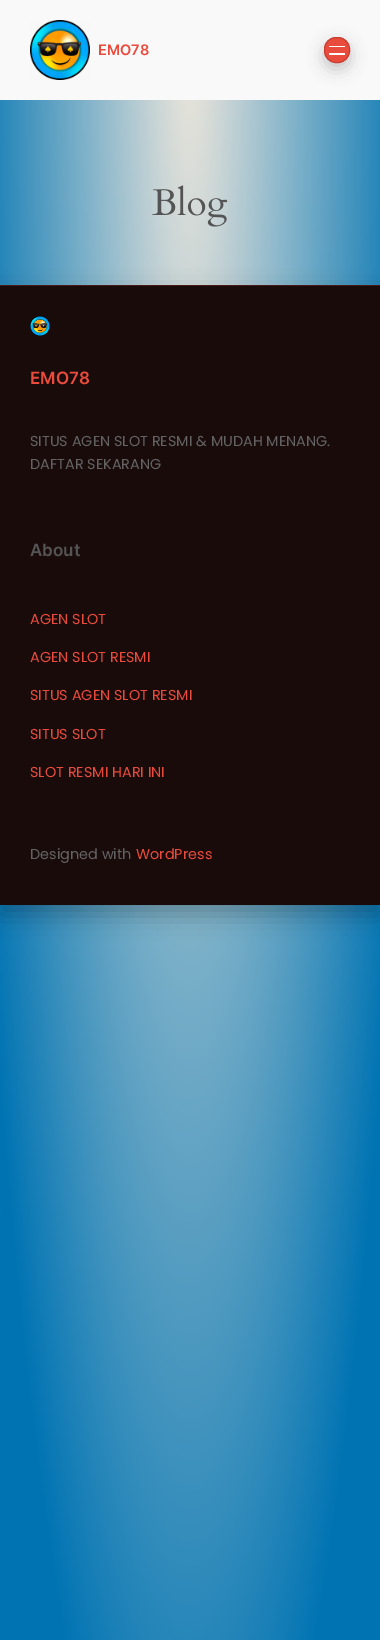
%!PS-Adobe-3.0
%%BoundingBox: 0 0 380 1640
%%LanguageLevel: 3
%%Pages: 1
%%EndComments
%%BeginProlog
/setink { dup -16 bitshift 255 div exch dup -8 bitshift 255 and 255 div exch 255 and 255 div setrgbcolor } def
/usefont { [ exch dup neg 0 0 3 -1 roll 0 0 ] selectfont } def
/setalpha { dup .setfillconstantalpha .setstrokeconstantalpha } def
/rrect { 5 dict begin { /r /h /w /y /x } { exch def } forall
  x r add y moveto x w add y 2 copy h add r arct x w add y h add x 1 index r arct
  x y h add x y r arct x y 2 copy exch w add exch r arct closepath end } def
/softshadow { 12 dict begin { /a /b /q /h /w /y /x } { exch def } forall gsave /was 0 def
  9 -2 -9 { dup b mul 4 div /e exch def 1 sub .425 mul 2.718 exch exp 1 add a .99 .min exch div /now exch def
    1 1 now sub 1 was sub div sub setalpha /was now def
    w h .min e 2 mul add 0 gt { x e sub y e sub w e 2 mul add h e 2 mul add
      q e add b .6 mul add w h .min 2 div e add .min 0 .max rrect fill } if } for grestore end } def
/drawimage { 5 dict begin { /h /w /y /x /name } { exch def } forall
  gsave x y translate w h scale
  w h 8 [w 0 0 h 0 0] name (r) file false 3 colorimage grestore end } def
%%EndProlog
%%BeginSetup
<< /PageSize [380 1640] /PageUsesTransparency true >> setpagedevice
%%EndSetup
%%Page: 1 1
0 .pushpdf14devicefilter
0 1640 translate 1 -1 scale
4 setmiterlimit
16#FFFFFF setink
0 0 380 1640 rectfill
gsave 0 100 moveto 380 100 lineto 380 1640 lineto 0 1640 lineto closepath clip newpath 190 0 translate 228 1968 scale
<< /ShadingType 3 /ColorSpace /DeviceRGB /Coords [0 0 0 0 0 1] /Extend [true true] /Function << /FunctionType 2 /Domain [0 1] /C0 [0.937 0.906 0.863] /C1 [0 0.455 0.702] /N 1 >> >> shfill grestore
16#F9F9F9 setink
0 0 380 100 rectfill
(img1.raw) 30 20 60 60 drawimage
/Inter-SemiBold 14.5 usefont
16#E94B3C setink
98 55 moveto (EMO78) show
16#000000 setink
324 43 26 26 12 8 0.2 softshadow
16#E94B3C setink
324.5 37.5 25 25 11.5 rrect gsave fill grestore
16#C63D31 setink
stroke
16#FFFFFF setink
329 46 16 1 rectfill
329 53 16 2 rectfill
(img2.raw) 152 185 76 42 drawimage
16#000000 setink
0 295 380 620 0 12 0.25 softshadow
16#1A0B0B setink
0 286 380 619 rectfill
16#481916 setink
0 285 380 1 rectfill
(img3.raw) 30 316 20 20 drawimage
/Inter-SemiBold 17 usefont
16#E94B3C setink
30 384 moveto (EMO78) show
/Poppins-Regular 14.4 usefont
16#636363 setink
30 446 moveto (SITUS AGEN SLOT RESMI & MUDAH MENANG.) show
30 469 moveto (DAFTAR SEKARANG) show
/Inter-SemiBold 17 usefont
16#545454 setink
30 556 moveto (About) show
/Poppins-Regular 14.4 usefont
16#E94B3C setink
[
    [(AGEN SLOT) 30 624]
    [(AGEN SLOT RESMI) 30 662]
    [(SITUS AGEN SLOT RESMI) 30 700]
    [(SITUS SLOT) 30 739]
    [(SLOT RESMI HARI INI) 30 777]
] { aload pop moveto show } forall
16#636363 setink
30 859 moveto (Designed with) show
16#E94B3C setink
136 859 moveto (WordPress) show
.poppdf14devicefilter showpage
%%EOF
